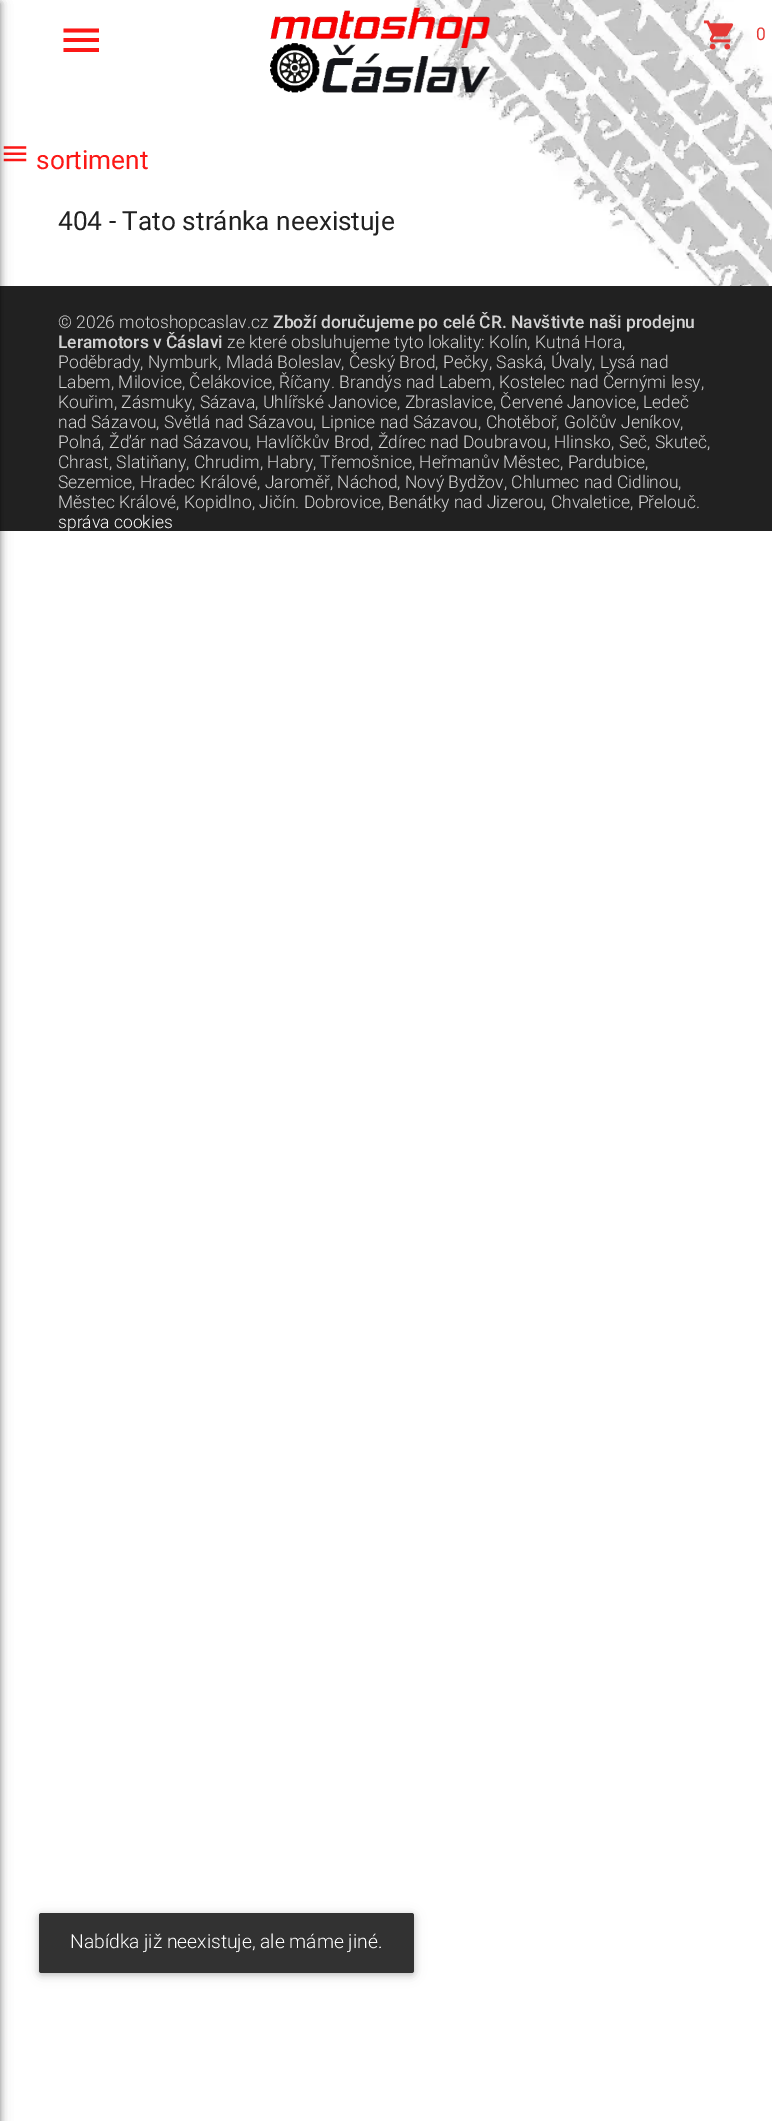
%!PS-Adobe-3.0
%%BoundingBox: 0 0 772 2121
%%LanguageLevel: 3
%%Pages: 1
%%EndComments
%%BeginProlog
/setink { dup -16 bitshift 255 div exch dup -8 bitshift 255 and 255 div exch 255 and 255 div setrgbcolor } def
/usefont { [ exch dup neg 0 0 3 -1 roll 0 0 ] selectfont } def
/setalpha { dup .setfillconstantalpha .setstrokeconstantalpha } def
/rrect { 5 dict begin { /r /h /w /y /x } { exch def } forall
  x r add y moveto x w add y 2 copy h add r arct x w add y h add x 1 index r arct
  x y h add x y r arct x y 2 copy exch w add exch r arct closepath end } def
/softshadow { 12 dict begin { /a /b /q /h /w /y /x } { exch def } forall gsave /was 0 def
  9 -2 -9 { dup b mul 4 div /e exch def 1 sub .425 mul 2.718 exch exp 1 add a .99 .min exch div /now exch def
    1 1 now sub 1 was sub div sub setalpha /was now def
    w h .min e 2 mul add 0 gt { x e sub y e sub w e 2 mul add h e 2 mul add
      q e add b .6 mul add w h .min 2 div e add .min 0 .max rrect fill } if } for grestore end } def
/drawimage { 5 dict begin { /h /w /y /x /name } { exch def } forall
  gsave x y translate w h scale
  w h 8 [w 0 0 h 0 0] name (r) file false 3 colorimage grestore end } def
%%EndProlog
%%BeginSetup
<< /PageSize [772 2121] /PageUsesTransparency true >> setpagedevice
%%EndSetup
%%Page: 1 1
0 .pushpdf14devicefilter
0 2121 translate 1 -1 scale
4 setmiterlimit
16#FFFFFF setink
0 0 772 2121 rectfill
(img1.raw) 414 0 358 286 drawimage
(img4.raw) 3 146 24 16 drawimage
16#212121 setink
0 286 772 245 rectfill
16#000000 setink
-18 3 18 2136 0 6 0.12 softshadow
-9 3 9 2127 0 3 0.16 softshadow
-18 3 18 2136 0 6 0.12 softshadow
-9 3 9 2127 0 3 0.16 softshadow
16#FC1816 setink
63.5 28.5 moveto 99 28.5 lineto 99 32.5 lineto 63.5 32.5 lineto closepath 63.5 42 moveto 63.5 38 lineto 99 38 lineto 99 42 lineto closepath 63.5 52 moveto 63.5 48 lineto 99 48 lineto 99 52 lineto closepath fill
(img2.raw) 270 7 221 86 drawimage
(img3.raw) 703 20 31 30 drawimage
/Roboto-Regular 17.5 usefont
16#E53935 setink
756 40 moveto 1 0 (0) ashow
/Roboto-Regular 26.25 usefont
16#FC1816 setink
36 169 moveto (sortiment) show
16#212121 setink
58 230 moveto (404 - Tato stránka neexistuje) show
/Roboto-Light 17.5 usefont
16#D3D3D3 setink
58 328 moveto (© 2026 motoshopcaslav.cz) show
/Roboto-Medium 17.5 usefont
273 328 moveto (Zboží doručujeme po celé ČR. Navštivte naši prodejnu) show
58 348 moveto (Leramotors v Čáslavi) show
/Roboto-Light 17.5 usefont
[
    [(ze které obsluhujeme tyto lokality: Kolín, Kutná Hora,) 227 348]
    [(Poděbrady, Nymburk, Mladá Boleslav, Český Brod, Pečky, Saská, Úvaly, Lysá nad) 58 368]
    [(Labem, Milovice, Čelákovice, Říčany. Brandýs nad Labem, Kostelec nad Černými lesy,) 58 388]
    [(Kouřim, Zásmuky, Sázava, Uhlířské Janovice, Zbraslavice, Červené Janovice, Ledeč) 58 408]
    [(nad Sázavou, Světlá nad Sázavou, Lipnice nad Sázavou, Chotěboř, Golčův Jeníkov,) 58 428]
    [(Polná, Žďár nad Sázavou, Havlíčkův Brod, Ždírec nad Doubravou, Hlinsko, Seč, Skuteč,) 58 448]
    [(Chrast, Slatiňany, Chrudim, Habry, Třemošnice, Heřmanův Městec, Pardubice,) 58 468]
    [(Sezemice, Hradec Králové, Jaroměř, Náchod, Nový Bydžov, Chlumec nad Cidlinou,) 58 488]
    [(Městec Králové, Kopidlno, Jičín. Dobrovice, Benátky nad Jizerou, Chvaletice, Přelouč.) 58 508]
] { aload pop moveto show } forall
16#FFFFFF setink
58 528 moveto (správa cookies) show
16#000000 setink
39 1915 375 60 2.5 6 0.12 softshadow
39 1915 375 60 2.5 3 0.16 softshadow
16#323232 setink
39 1913 375 60 2.5 rrect fill
/Roboto-Light 19.25 usefont
16#FFFFFF setink
70 1948 moveto (Nabídka již neexistuje, ale máme jiné.) show
.poppdf14devicefilter showpage
%%EOF
